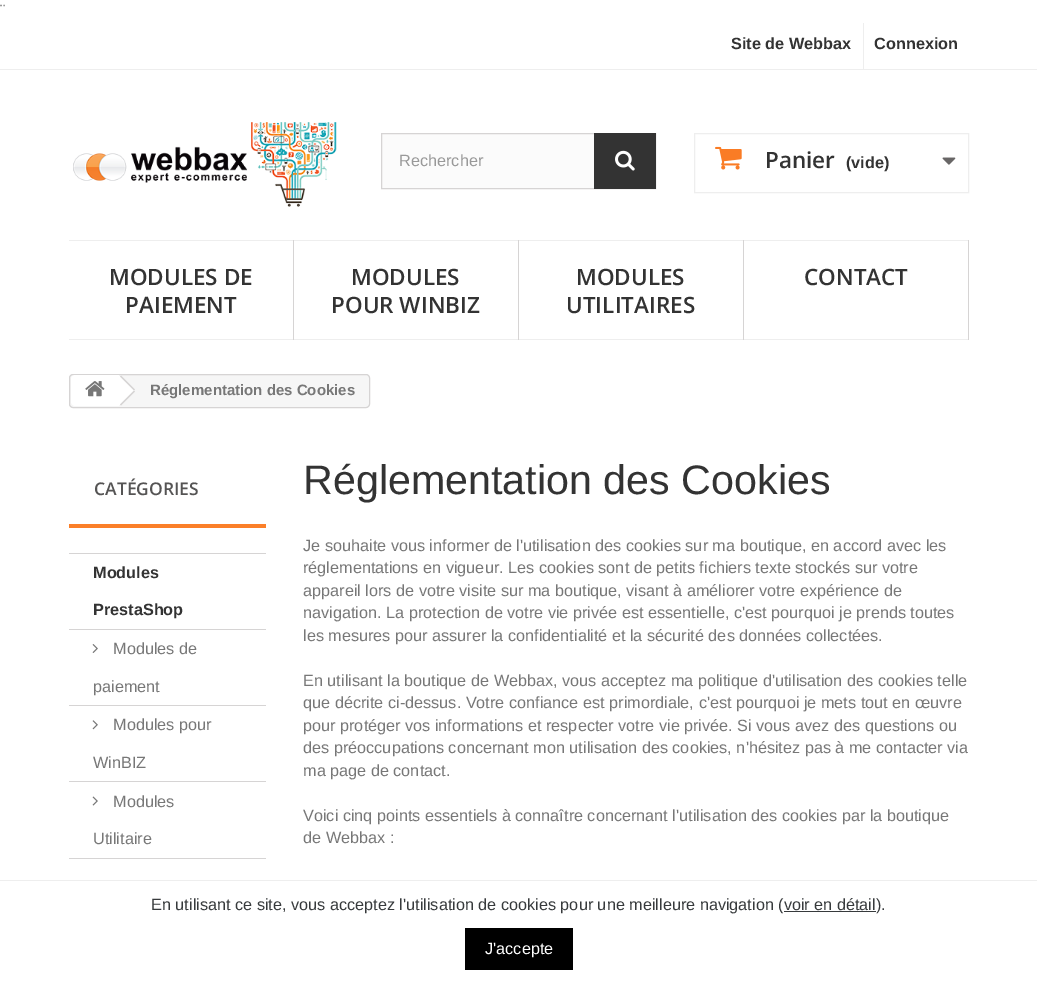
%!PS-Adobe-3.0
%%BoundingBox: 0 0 1037 982
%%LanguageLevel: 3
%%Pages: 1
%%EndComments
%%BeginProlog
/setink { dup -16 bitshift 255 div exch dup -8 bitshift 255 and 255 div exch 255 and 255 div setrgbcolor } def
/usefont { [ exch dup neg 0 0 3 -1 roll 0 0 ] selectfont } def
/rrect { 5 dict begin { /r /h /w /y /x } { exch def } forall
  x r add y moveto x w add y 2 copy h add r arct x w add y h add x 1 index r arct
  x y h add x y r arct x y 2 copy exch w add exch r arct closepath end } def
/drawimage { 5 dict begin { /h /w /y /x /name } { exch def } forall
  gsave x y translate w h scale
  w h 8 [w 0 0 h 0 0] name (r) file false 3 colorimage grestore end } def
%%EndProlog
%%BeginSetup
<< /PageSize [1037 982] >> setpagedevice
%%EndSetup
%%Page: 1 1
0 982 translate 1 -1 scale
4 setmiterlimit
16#FFFFFF setink
0 0 1037 982 rectfill
/LiberationSans-Regular 16.25 usefont
16#777777 setink
0 16 moveto (¨) show
16#EEEEEE setink
0 69 1037 1 rectfill
/LiberationSans-Bold 16.25 usefont
16#333333 setink
731 49 moveto (Site de Webbax) show
16#EEEEEE setink
863 23 1 46 rectfill
16#333333 setink
874 49 moveto (Connexion) show
(img1.raw) 73 122 264 85 drawimage
16#FBFBFB setink
382 134 212 54 rectfill
16#D6D4D4 setink
381.5 133.5 274 55 rectstroke
/LiberationSans-Regular 16.25 usefont
16#999999 setink
399 166 moveto (Rechercher) show
16#333333 setink
594 133 62 56 rectfill
(img2.raw) 615 150 20 21 drawimage
16#EEEEEE setink
694.5 133.5 274 59 rectstroke
(img3.raw) 715 146 27 24 drawimage
/OpenSans-SemiBold 22.5 usefont
16#333333 setink
765 168 moveto (Panier) show
/LiberationSans-Bold 16.25 usefont
846 168 moveto (\(vide\)) show
(img4.raw) 942 157 14 8 drawimage
[
    [293 240 1 100 16#D6D4D4]
    [69 240 224 1 16#EEEEEE]
    [69 339 224 1 16#EEEEEE]
] { aload pop setink rectfill } forall
/OpenSans-SemiBold 22.5 usefont
16#333333 setink
109 285 moveto (MODULES DE) show
125 313 moveto (PAIEMENT) show
[
    [518 240 1 100 16#D6D4D4]
    [294 240 224 1 16#EEEEEE]
    [294 339 224 1 16#EEEEEE]
] { aload pop setink rectfill } forall
16#333333 setink
351 285 moveto (MODULES) show
331 313 moveto (POUR WINBIZ) show
[
    [743 240 1 100 16#D6D4D4]
    [519 240 224 1 16#EEEEEE]
    [519 339 224 1 16#EEEEEE]
] { aload pop setink rectfill } forall
16#333333 setink
576 285 moveto (MODULES) show
566 313 moveto (UTILITAIRES) show
[
    [968 240 1 100 16#D6D4D4]
    [744 240 224 1 16#EEEEEE]
    [744 339 224 1 16#EEEEEE]
] { aload pop setink rectfill } forall
16#333333 setink
804 285 moveto (CONTACT) show
16#F6F6F6 setink
69.5 374.5 300 33 3.5 rrect gsave fill grestore
16#D6D4D4 setink
stroke
16#FFFFFF setink
75 375 moveto 119 375 lineto 119 406 lineto 75 406 lineto 73 406 71 404 71 402 curveto 71 379 lineto 71 377 73 375 75 375 curveto closepath fill
(img5.raw) 85 381 20 16 drawimage
122 376.5 moveto 134 388.5 lineto 135 389.5 135 391 134 392 curveto 122 404.5 lineto 121 405.5 119 405.5 118 404.5 curveto 106 392 lineto 105 391 105 389.5 106 388.5 curveto 118 376.5 lineto 119 375.5 121 375.5 122 376.5 curveto closepath fill
16#D6D4D4 setink
121 375.5 moveto 135 389.5 lineto 134 390.5 lineto 120 376.5 lineto closepath fill
134 390.5 moveto 135 391.5 lineto 121 405.5 lineto 120 404.5 lineto closepath fill
/LiberationSans-Bold 15 usefont
16#777777 setink
150 395 moveto (Réglementation des Cookies) show
16#FB7F29 setink
69 524 197 4 rectfill
/OpenSans-SemiBold 17.5 usefont
16#555454 setink
94 495 moveto (CATÉGORIES) show
16#D6D4D4 setink
69 553 197 1 rectfill
69 629 197 1 rectfill
/LiberationSans-Bold 16.25 usefont
16#333333 setink
93 578 moveto (Modules) show
93 615 moveto (PrestaShop) show
16#D6D4D4 setink
69 705 197 1 rectfill
(img6.raw) 92 644 6 9 drawimage
/LiberationSans-Regular 16.25 usefont
16#777777 setink
113 654 moveto (Modules de) show
93 692 moveto (paiement) show
16#D6D4D4 setink
69 781 197 1 rectfill
(img7.raw) 92 720 6 10 drawimage
16#777777 setink
113 730 moveto (Modules pour) show
93 768 moveto (WinBIZ) show
16#D6D4D4 setink
69 858 197 1 rectfill
(img8.raw) 92 796 6 10 drawimage
16#777777 setink
113 807 moveto (Modules) show
93 844 moveto (Utilitaire) show
/LiberationSans-Regular 41.25 usefont
16#333333 setink
303 494 moveto (Réglementation des Cookies) show
/LiberationSans-Regular 16.25 usefont
16#777777 setink
[
    [(Je souhaite vous informer de l'utilisation des cookies sur ma boutique, en accord avec les) 303 551]
    [(réglementations en vigueur. Les cookies sont de petits fichiers texte stockés sur votre) 303 573]
    [(appareil lors de votre visite sur ma boutique, visant à améliorer votre expérience de) 303 596]
    [(navigation. La protection de votre vie privée est essentielle, c'est pourquoi je prends toutes) 303 618]
    [(les mesures pour assurer la confidentialité et la sécurité des données collectées.) 303 641]
    [(En utilisant la boutique de Webbax, vous acceptez ma politique d'utilisation des cookies telle) 303 686]
    [(que décrite ci-dessus. Votre confiance est primordiale, c'est pourquoi je mets tout en œuvre) 303 708]
    [(pour protéger vos informations et respecter votre vie privée. Si vous avez des questions ou) 303 731]
    [(des préoccupations concernant mon utilisation des cookies, n'hésitez pas à me contacter via) 303 753]
    [(ma page de contact.) 303 776]
    [(Voici cinq points essentiels à connaître concernant l'utilisation des cookies par la boutique) 303 821]
    [(de Webbax :) 303 843]
] { aload pop moveto show } forall
16#EEEEEE setink
0 880 1037 1 rectfill
16#373A3C setink
151 910 moveto (En utilisant ce site, vous acceptez l'utilisation de cookies pour une meilleure navigation \(voir en détail\).) show
784 911 92 1 rectfill
16#000000 setink
465 928 108 42 rectfill
16#FFFFFF setink
485 954 moveto (J'accepte) show
showpage
%%EOF
